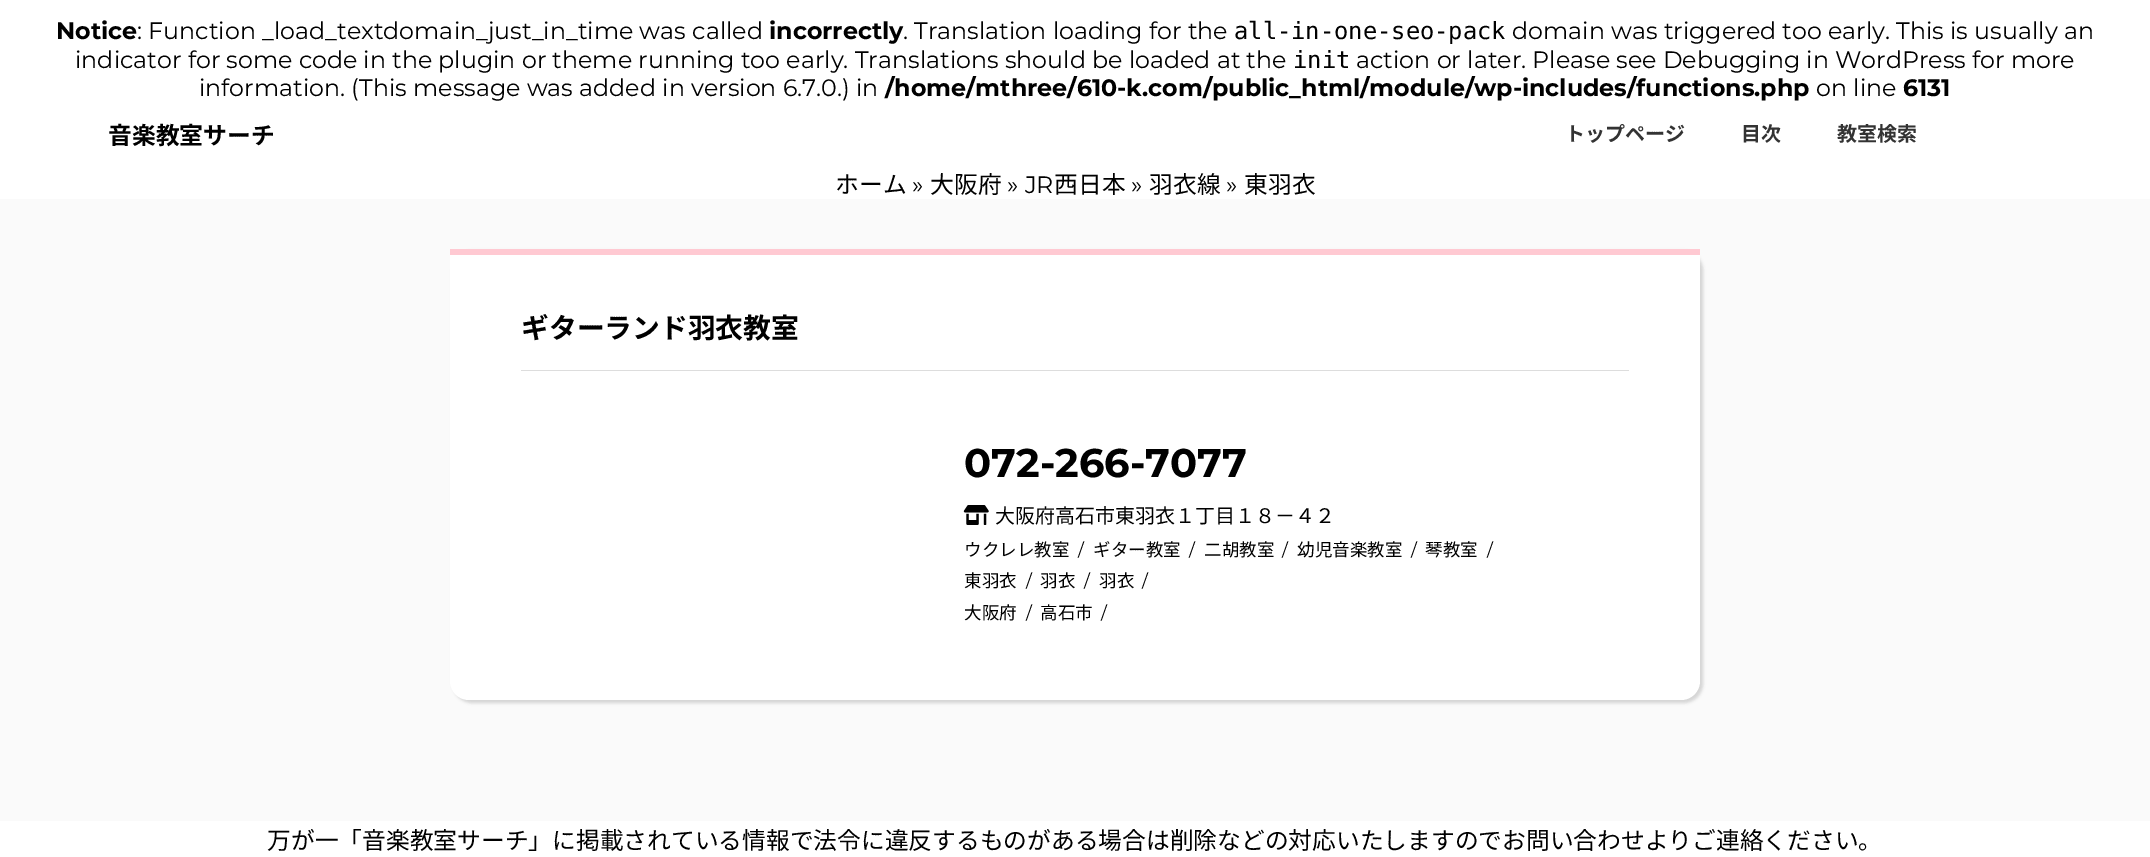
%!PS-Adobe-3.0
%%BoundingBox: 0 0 2150 857
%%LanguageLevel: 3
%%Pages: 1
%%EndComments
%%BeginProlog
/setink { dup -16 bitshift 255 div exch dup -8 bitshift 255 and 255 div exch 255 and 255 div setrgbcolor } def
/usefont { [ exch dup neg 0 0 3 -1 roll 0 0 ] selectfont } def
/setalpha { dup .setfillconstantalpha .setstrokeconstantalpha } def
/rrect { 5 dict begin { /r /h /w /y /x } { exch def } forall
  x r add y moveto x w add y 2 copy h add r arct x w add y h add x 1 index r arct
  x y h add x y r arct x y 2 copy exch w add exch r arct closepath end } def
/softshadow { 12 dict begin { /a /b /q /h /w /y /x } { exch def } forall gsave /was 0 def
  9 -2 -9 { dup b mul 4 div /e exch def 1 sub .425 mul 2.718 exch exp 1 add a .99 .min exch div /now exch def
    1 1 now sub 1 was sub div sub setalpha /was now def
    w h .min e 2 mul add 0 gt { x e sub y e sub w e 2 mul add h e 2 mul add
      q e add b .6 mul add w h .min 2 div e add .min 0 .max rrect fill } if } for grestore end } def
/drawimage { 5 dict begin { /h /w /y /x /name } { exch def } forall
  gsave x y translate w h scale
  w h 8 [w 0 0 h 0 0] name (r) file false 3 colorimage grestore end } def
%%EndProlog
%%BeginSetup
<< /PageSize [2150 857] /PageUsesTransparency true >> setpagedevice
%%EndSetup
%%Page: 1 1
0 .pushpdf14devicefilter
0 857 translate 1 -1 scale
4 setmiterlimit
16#FFFFFF setink
0 0 2150 857 rectfill
/Montserrat-Bold 23.75 usefont
16#000000 setink
56 39 moveto (Notice) show
/Montserrat-Regular 23.75 usefont
137 39 moveto (: Function _load_textdomain_just_in_time was called) show
/Montserrat-Bold 23.75 usefont
769 39 moveto (incorrectly) show
/Montserrat-Regular 23.75 usefont
903 39 moveto (. Translation loading for the) show
/DejaVuSansMono-Regular 23.75 usefont
1234 39 moveto (all-in-one-seo-pack) show
/Montserrat-Regular 23.75 usefont
1512 39 moveto (domain was triggered too early. This is usually an) show
75 68 moveto (indicator for some code in the plugin or theme running too early. Translations should be loaded at the) show
/DejaVuSansMono-Regular 23.75 usefont
1293 68 moveto (init) show
/Montserrat-Regular 23.75 usefont
1356 68 moveto (action or later. Please see Debugging in WordPress for more) show
199 96 moveto (information. \(This message was added in version 6.7.0.\) in) show
/Montserrat-Bold 23.75 usefont
885 96 moveto (/home/mthree/610-k.com/public_html/module/wp-includes/functions.php) show
/Montserrat-Regular 23.75 usefont
1816 96 moveto (on line) show
/Montserrat-Bold 23.75 usefont
1903 96 moveto (6131) show
/NotoSansJP-Bold 23.75 usefont
108 144 moveto (音楽教室サーチ) show
/NotoSansJP-Bold 20 usefont
16#333333 setink
[
    [(トップページ) 1565 141]
    [(目次) 1741 141]
    [(教室検索) 1837 141]
] { aload pop moveto show } forall
/NotoSansJP-Regular 23.75 usefont
16#000000 setink
835 193 moveto (ホーム) show
/Montserrat-Regular 23.75 usefont
912 193 moveto (») show
/NotoSansJP-Regular 23.75 usefont
930 193 moveto (大阪府) show
/Montserrat-Regular 23.75 usefont
1007 193 moveto (» JR) show
/NotoSansJP-Regular 23.75 usefont
1054 193 moveto (西日本) show
/Montserrat-Regular 23.75 usefont
1131 193 moveto (») show
/NotoSansJP-Regular 23.75 usefont
1149 193 moveto (羽衣線) show
/Montserrat-Regular 23.75 usefont
1226 193 moveto (») show
/NotoSansJP-Regular 23.75 usefont
1244 193 moveto (東羽衣) show
16#FAFAFA setink
0 199 2150 622 rectfill
16#000000 setink
453 251 1250 452 19 1.5 0.15 softshadow
16#FFFFFF setink
450 249 moveto 1700 249 lineto 1700 681 lineto 1700 691.5 1691.5 700 1681 700 curveto 469 700 lineto 458.5 700 450 691.5 450 681 curveto closepath fill
16#FFC9D2 setink
450 249 1250 6 rectfill
16#DDDDDD setink
521 370 1108 1 rectfill
/NotoSansJP-Bold 27.75 usefont
16#000000 setink
521 338 moveto (ギターランド羽衣教室) show
/Montserrat-Bold 40 usefont
964 477 moveto (072-266-7077) show
(img1.raw) 963 505 26 20 drawimage
/NotoSansJP-Regular 20 usefont
995 523 moveto (大阪府高石市東羽衣１丁目１８－４２) show
/NotoSansJP-Regular 17.5 usefont
964 556 moveto (ウクレレ教室) show
/Montserrat-Regular 17.5 usefont
1078 556 moveto (/) show
/NotoSansJP-Regular 17.5 usefont
1093 556 moveto (ギター教室) show
/Montserrat-Regular 17.5 usefont
1189 556 moveto (/) show
/NotoSansJP-Regular 17.5 usefont
1204 556 moveto (二胡教室) show
/Montserrat-Regular 17.5 usefont
1282 556 moveto (/) show
/NotoSansJP-Regular 17.5 usefont
1297 556 moveto (幼児音楽教室) show
/Montserrat-Regular 17.5 usefont
1411 556 moveto (/) show
/NotoSansJP-Regular 17.5 usefont
1425 556 moveto (琴教室) show
/Montserrat-Regular 17.5 usefont
1487 556 moveto (/) show
/NotoSansJP-Regular 17.5 usefont
964 587 moveto (東羽衣) show
/Montserrat-Regular 17.5 usefont
1026 587 moveto (/) show
/NotoSansJP-Regular 17.5 usefont
1040 587 moveto (羽衣) show
/Montserrat-Regular 17.5 usefont
1084 587 moveto (/) show
/NotoSansJP-Regular 17.5 usefont
1099 587 moveto (羽衣) show
/Montserrat-Regular 17.5 usefont
1142 587 moveto (/) show
/NotoSansJP-Regular 17.5 usefont
964 619 moveto (大阪府) show
/Montserrat-Regular 17.5 usefont
1026 619 moveto (/) show
/NotoSansJP-Regular 17.5 usefont
1040 619 moveto (高石市) show
/Montserrat-Regular 17.5 usefont
1101 619 moveto (/) show
/NotoSansJP-Regular 23.75 usefont
267 849 moveto (万が一「音楽教室サーチ」に掲載されている情報で法令に違反するものがある場合は削除などの対応いたしますのでお問い合わせよりご連絡ください。) show
.poppdf14devicefilter showpage
%%EOF
